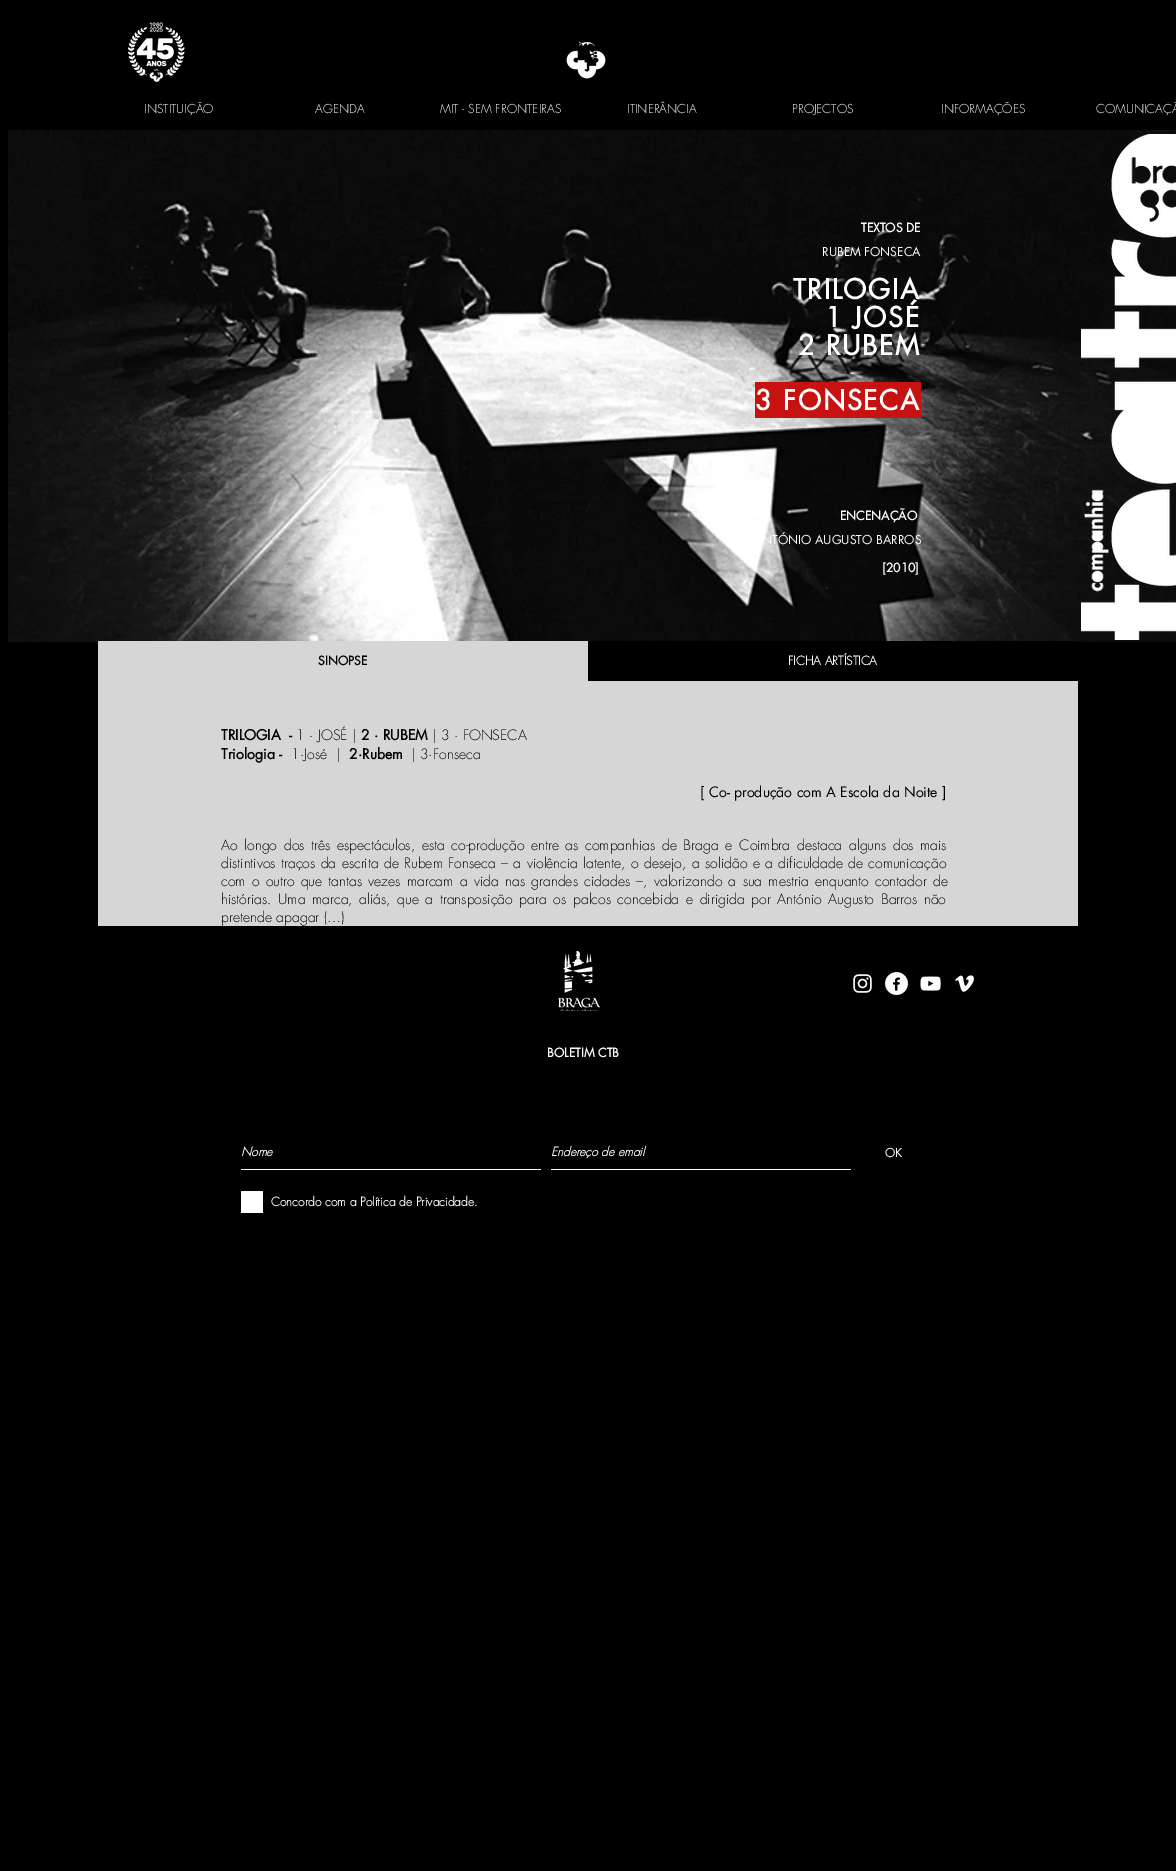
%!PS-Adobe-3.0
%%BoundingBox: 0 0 1176 1871
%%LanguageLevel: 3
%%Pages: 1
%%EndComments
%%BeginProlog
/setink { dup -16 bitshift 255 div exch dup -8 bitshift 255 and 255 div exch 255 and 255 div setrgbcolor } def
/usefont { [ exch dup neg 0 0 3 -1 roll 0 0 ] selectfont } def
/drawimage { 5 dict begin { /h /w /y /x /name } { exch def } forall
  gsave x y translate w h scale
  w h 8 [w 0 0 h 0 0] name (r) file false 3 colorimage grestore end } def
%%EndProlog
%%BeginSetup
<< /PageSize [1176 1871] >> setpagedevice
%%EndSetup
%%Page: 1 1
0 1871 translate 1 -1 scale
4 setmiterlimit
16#000000 setink
0 0 1176 1871 rectfill
(img1.raw) 127 22 58 60 drawimage
(img2.raw) 566 41 40 38 drawimage
/futura-Light 12 usefont
16#FFFFFF setink
[
    [(INSTITUIÇÃO) 144 113]
    [(AGENDA) 315 113]
    [(MIT - SEM FRONTEIRAS) 440 113]
    [(ITINERÂNCIA) 627 113]
    [(PROJECTOS) 792 113]
    [(INFORMAÇÕES) 941 113]
    [(COMUNICAÇÃ) 1096 113]
] { aload pop moveto show } forall
(img3.raw) 8 130 1168 512 drawimage
/futura-Bold 12 usefont
861 232 moveto (TEXTOS DE) show
/futura-Regular 12 usefont
822 256 moveto (RUBEM FONSECA) show
(img4.raw) 1081 134 95 506 drawimage
/futura-Bold 27 usefont
793 299 moveto 1.6 0 (TRILOGIA) ashow
825 327 moveto 1.6 0 (1 JOSÉ) ashow
798 355 moveto 1.6 0 (2 RUBEM) ashow
16#C71212 setink
755 382 166 36 rectfill
16#FFFFFF setink
755 410 moveto 1.6 0 (3 FONSECA) ashow
/futura-Bold 12 usefont
840 520 moveto (ENCENAÇÃO) show
/futura-Regular 12 usefont
762 544 moveto (NTÓNIO AUGUSTO BARROS) show
/futura-Bold 12 usefont
882 572 moveto ([2010]) show
16#D6D6D6 setink
98 641 490 40 rectfill
16#000000 setink
318 665 moveto (SINOPSE) show
588 641 490 1 rectfill
/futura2-Bold 12 usefont
16#FFFFFF setink
788 665 moveto (FICHA ARTÍSTICA) show
16#D6D6D6 setink
98 681 980 245 rectfill
/futura-Bold 14 usefont
16#000000 setink
221 740 moveto (TRILOGIA  -) show
/futura-Light 14 usefont
296 740 moveto (1 · JOSÉ |) show
/futura-Bold 14 usefont
361 740 moveto (2 · RUBEM) show
/futura-Light 14 usefont
432 740 moveto (| 3 · FONSECA) show
/futura-Bold 14 usefont
221 759 moveto (Triologia -) show
/futura-Light 14 usefont
291 759 moveto (1·José  |) show
/futura-Bold 14 usefont
349 759 moveto (2·Rubem) show
/futura-Light 14 usefont
411 759 moveto (| 3·Fonseca) show
/futura-Regular 14 usefont
700 797 moveto ([ Co- produção com A Escola da Noite ]) show
/futura-Light 14 usefont
221 850 moveto 2.25 0 32 (Ao longo dos três espectáculos, esta co-produção entre as companhias de Braga e Coimbra destaca alguns dos mais) widthshow
221 868 moveto 1 0 32 (distintivos traços da escrita de Rubem Fonseca – a violência latente, o desejo, a solidão e a dificuldade de comunicação) widthshow
221 886 moveto 1.9 0 32 (com o outro que tantas vezes marcam a vida nas grandes cidades –, valorizando a sua mestria enquanto contador de) widthshow
221 904 moveto 2.25 0 32 (histórias. Uma marca, aliás, que a transposição para os palcos concebida e dirigida por António Augusto Barros não) widthshow
221 922 moveto (pretende apagar \(…\)) show
(img5.raw) 558 951 42 60 drawimage
(img6.raw) 853 974 19 19 drawimage
(img7.raw) 884 971 25 25 drawimage
(img8.raw) 920 976 21 15 drawimage
(img9.raw) 955 975 20 17 drawimage
/futura-Bold 12 usefont
16#FFFFFF setink
547 1057 moveto (BOLETIM CTB) show
241 1169 300 1 rectfill
/futura-BoldItalic 12 usefont
241 1156 moveto (Nome) show
551 1169 300 1 rectfill
551 1156 moveto (Endereço de email) show
/futura-Regular 12 usefont
885 1157 moveto (OK) show
241 1191 22 22 rectfill
/futura2-Bold 12 usefont
271 1206 moveto (Concordo com a Política de Privacidade.) show
showpage
%%EOF
